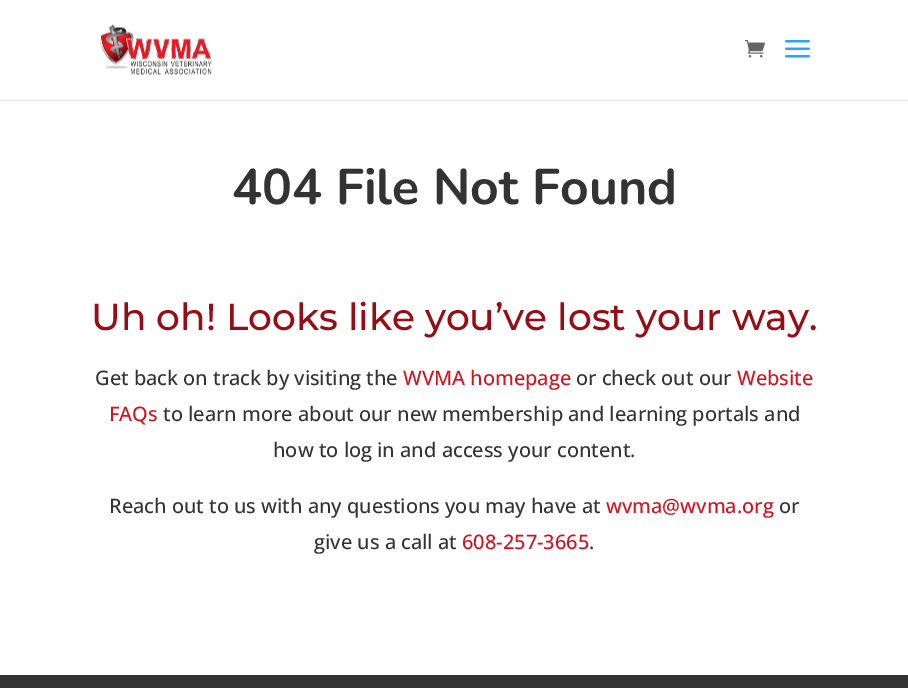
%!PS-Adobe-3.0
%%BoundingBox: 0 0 908 688
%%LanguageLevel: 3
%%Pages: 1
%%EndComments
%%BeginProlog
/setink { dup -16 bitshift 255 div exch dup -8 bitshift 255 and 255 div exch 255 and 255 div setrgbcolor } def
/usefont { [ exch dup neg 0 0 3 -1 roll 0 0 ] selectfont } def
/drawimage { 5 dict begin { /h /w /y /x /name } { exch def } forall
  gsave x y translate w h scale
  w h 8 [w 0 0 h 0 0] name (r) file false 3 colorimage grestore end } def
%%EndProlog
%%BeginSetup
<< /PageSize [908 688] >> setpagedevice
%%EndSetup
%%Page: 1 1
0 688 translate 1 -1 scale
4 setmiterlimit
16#FFFFFF setink
0 0 908 688 rectfill
16#E6E6E6 setink
0 100 moveto 0 101 lineto 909 101 lineto 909 1 lineto 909 100 lineto closepath fill
(img1.raw) 99 24 113 51 drawimage
(img2.raw) 745 40 20 18 drawimage
(img3.raw) 785 40 25 18 drawimage
/Nunito-Bold 50 usefont
16#333333 setink
232 204 moveto (404 File Not Found) show
/Montserrat-Medium 37.5 usefont
16#960D15 setink
91 330 moveto (Uh oh! Looks like you’ve lost your way.) show
/OpenSans-Medium 20 usefont
16#333333 setink
95 385 moveto (Get back on track by visiting the) show
16#D1131E setink
403 385 moveto (WVMA homepage) show
16#333333 setink
576 385 moveto (or check out our) show
16#D1131E setink
737 385 moveto (Website) show
109 421 moveto (FAQs) show
16#333333 setink
[
    [(to learn more about our new membership and learning portals and) 163 421]
    [(how to log in and access your content.) 273 457]
    [(Reach out to us with any questions you may have at) 109 513]
] { aload pop moveto show } forall
16#D1131E setink
606 513 moveto (wvma@wvma.org) show
16#333333 setink
779 513 moveto (or) show
314 549 moveto (give us a call at) show
16#D1131E setink
462 549 moveto (608-257-3665) show
16#333333 setink
589 549 moveto (.) show
0 675 908 13 rectfill
showpage
%%EOF
